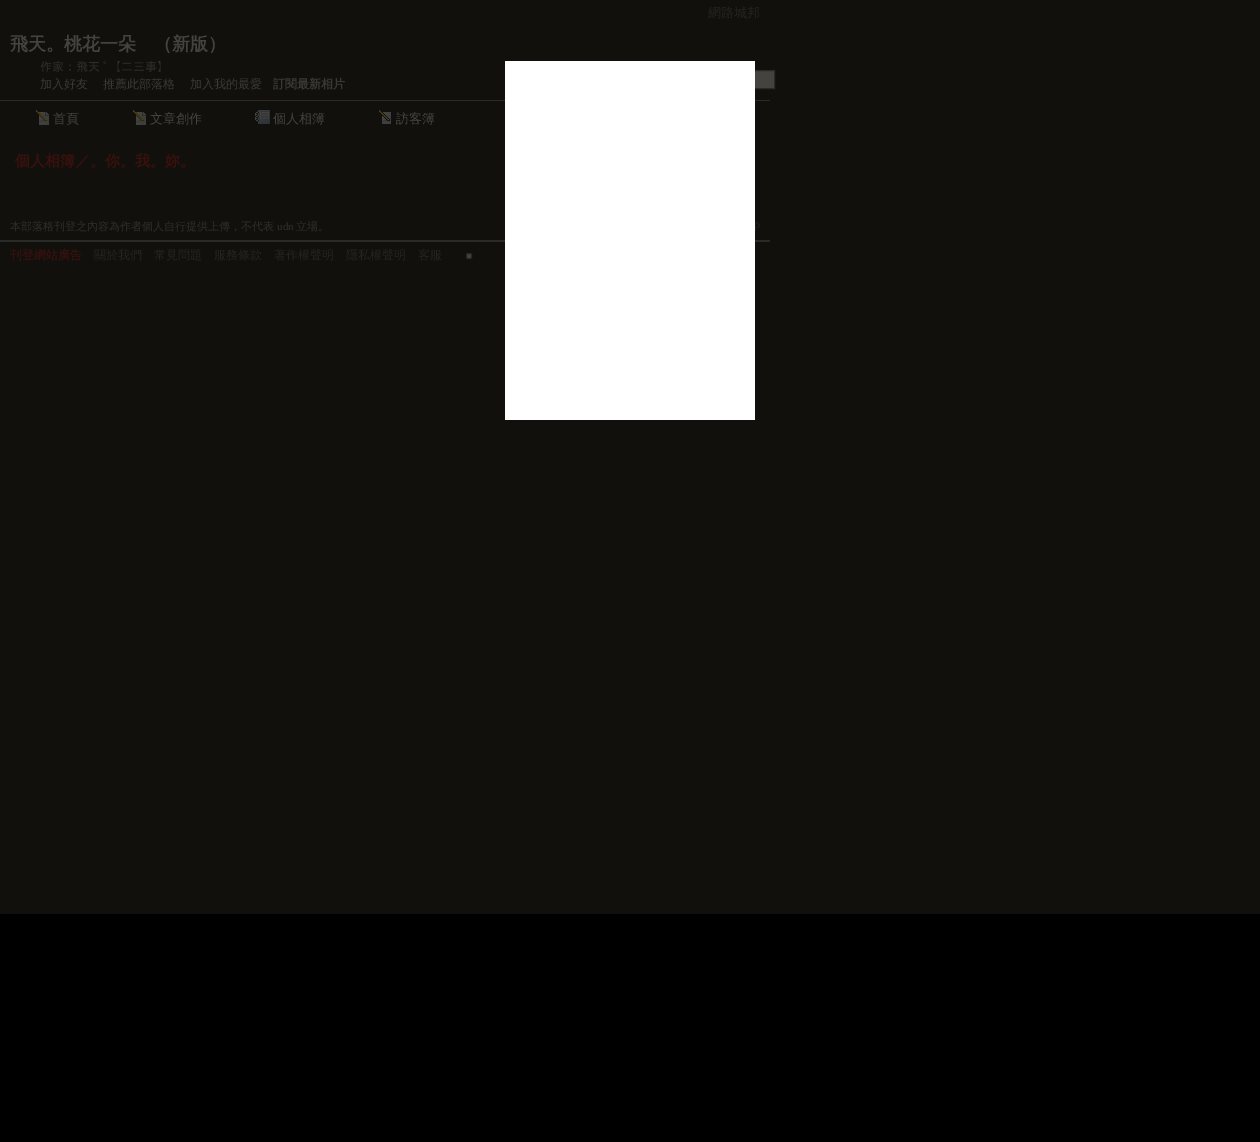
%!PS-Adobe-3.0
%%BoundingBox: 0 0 1260 1142
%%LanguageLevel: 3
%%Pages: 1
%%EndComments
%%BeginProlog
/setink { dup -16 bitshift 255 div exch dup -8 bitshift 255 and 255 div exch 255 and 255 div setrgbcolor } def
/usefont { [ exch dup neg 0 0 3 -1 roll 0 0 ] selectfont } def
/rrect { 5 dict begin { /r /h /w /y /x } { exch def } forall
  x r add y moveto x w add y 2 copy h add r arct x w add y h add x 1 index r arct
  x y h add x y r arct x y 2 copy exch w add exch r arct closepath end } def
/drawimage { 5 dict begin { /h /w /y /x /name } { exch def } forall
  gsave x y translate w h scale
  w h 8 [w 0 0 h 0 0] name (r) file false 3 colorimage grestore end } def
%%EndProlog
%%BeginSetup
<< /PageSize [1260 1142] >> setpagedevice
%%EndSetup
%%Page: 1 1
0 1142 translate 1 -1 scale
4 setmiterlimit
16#000000 setink
0 0 1260 1142 rectfill
16#11100D setink
0 0 1260 914 rectfill
/WenQuanYiZenHei-Medium 13 usefont
16#252421 setink
708 17 moveto (網路城邦) show
/WenQuanYiZenHei-Bold 18 usefont
16#444340 setink
10 50 moveto (飛天。桃花一朵) show
154 50 moveto (（新版）) show
/IPAGothic-Regular 12 usefont
16#2F2F2B setink
40 71 moveto -3 0 32 (作家：飛天 ﾟ【二三事】) widthshow
/WenQuanYiZenHei-Medium 12 usefont
16#3A3936 setink
[
    [(加入好友) 40 88]
    [(推薦此部落格) 103 88]
    [(加入我的最愛) 190 88]
] { aload pop moveto show } forall
/WenQuanYiZenHei-Bold 12 usefont
273 88 moveto (訂閱最新相片) show
16#444340 setink
755 71 19 17 rectfill
16#2A2A26 setink
560.5 70.5 214 18 rectstroke
0 100 770 1 rectfill
(img1.raw) 36 110 13 15 drawimage
/WenQuanYiZenHei-Medium 13 usefont
16#444340 setink
53 123 moveto (首頁) show
(img1.raw) 133 110 13 15 drawimage
150 123 moveto (文章創作) show
(img2.raw) 255 110 15 14 drawimage
273 123 moveto (個人相簿) show
(img3.raw) 379 110 12 14 drawimage
396 123 moveto (訪客簿) show
/WenQuanYiZenHei-Bold 15 usefont
16#3A100D setink
15 166 moveto (個人相簿／。你。我。妳。) show
16#2A2A26 setink
0 240 770 2 rectfill
/WenQuanYiZenHei-Medium 11 usefont
16#2F2F2B setink
10 230 moveto (本部落格刊登之內容為作者個人自行提供上傳，不代表) show
/LiberationSerif-Regular 11 usefont
277 230 moveto (udn) show
/WenQuanYiZenHei-Medium 11 usefont
296 230 moveto (立場。) show
/LiberationSerif-Regular 12 usefont
16#252421 setink
754 228 moveto (p) show
/WenQuanYiZenHei-Medium 12 usefont
16#44100D setink
10 259 moveto (刊登網站廣告) show
16#252421 setink
[
    [(關於我們) 94 259]
    [(常見問題) 154 259]
    [(服務條款) 214 259]
    [(著作權聲明) 274 259]
    [(隱私權聲明) 346 259]
    [(客服) 418 259]
] { aload pop moveto show } forall
16#444340 setink
466.5 253.5 5 5 1.5 rrect gsave fill grestore
16#282824 setink
stroke
16#FFFFFF setink
505 61 250 359 rectfill
showpage
%%EOF
